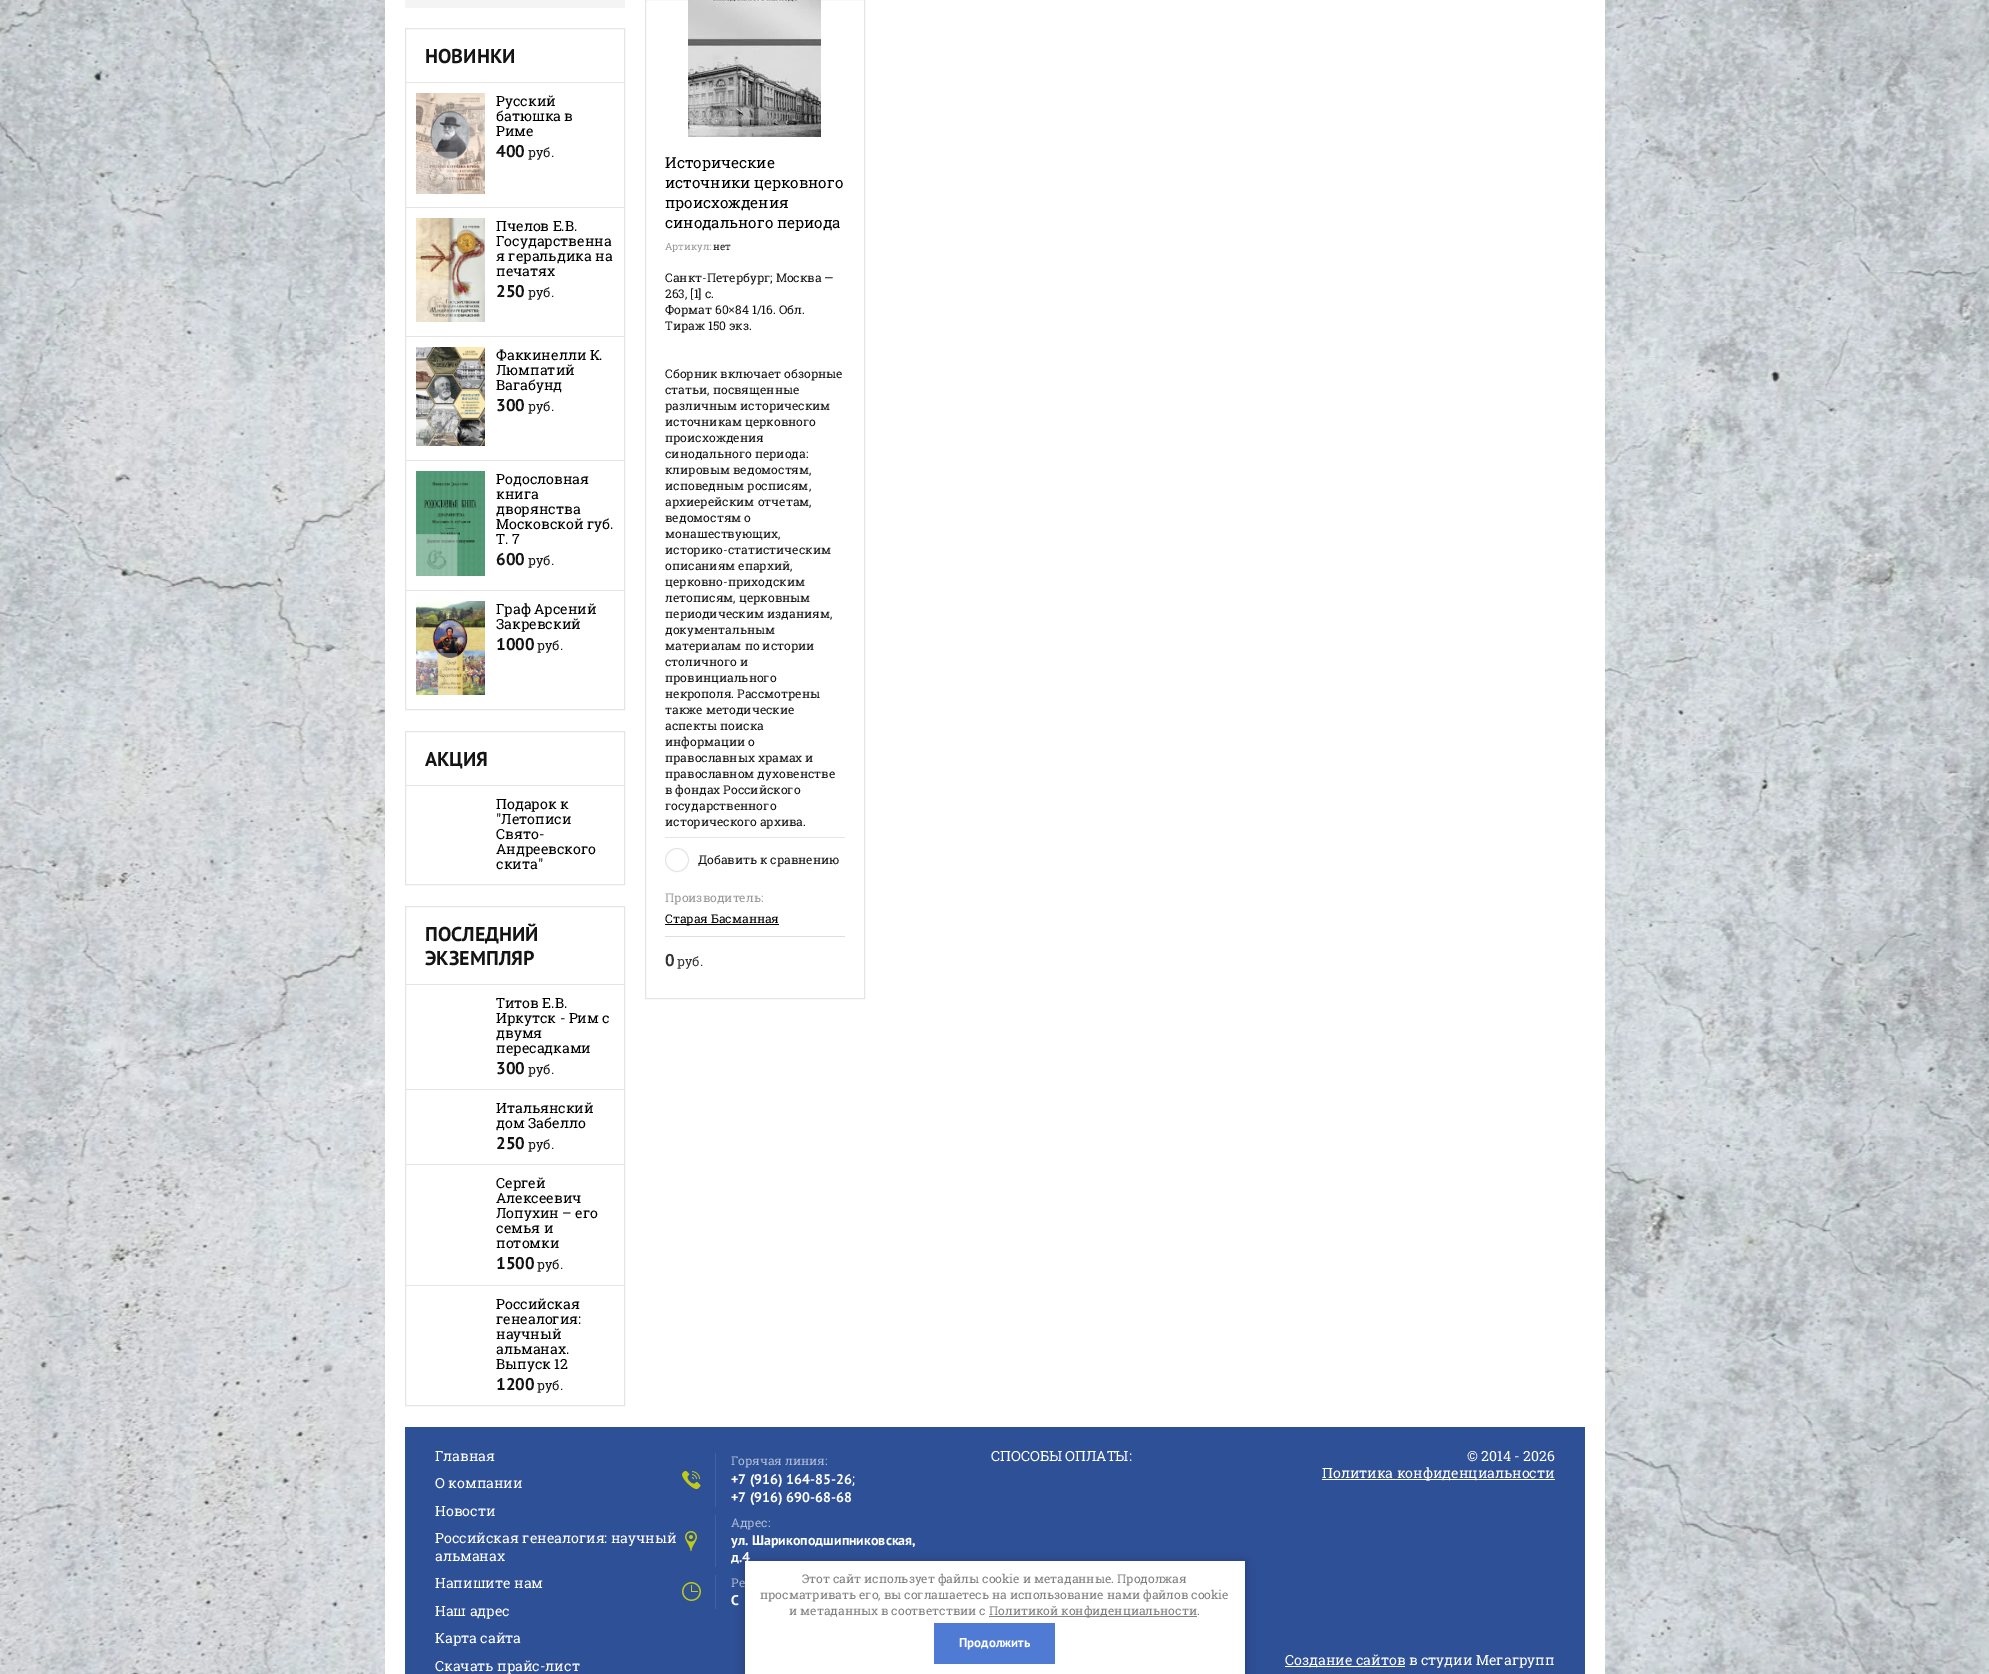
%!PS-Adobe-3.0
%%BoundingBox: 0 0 1989 1674
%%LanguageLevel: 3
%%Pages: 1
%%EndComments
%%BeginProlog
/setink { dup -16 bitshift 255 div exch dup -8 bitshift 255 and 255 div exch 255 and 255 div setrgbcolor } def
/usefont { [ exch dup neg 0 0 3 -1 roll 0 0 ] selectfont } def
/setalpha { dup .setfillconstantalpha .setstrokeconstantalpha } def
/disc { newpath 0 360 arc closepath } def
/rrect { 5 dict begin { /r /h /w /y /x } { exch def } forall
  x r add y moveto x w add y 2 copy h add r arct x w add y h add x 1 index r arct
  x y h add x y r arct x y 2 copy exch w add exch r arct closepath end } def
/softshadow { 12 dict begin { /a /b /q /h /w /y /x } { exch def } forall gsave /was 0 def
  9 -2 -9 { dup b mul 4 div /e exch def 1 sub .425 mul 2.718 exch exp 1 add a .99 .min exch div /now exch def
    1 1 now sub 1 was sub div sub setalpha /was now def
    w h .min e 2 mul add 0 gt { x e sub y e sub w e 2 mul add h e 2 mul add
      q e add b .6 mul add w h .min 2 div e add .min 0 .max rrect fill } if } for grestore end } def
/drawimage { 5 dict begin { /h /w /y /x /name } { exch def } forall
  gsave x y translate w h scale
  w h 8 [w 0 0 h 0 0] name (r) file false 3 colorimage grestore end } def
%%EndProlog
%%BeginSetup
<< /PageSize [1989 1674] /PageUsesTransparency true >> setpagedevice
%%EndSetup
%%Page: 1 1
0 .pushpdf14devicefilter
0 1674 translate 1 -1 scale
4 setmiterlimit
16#FFFFFF setink
0 0 1989 1674 rectfill
(img1.raw) 0 0 1989 1674 drawimage
385 0 1220 1674 rectfill
16#F4F4F4 setink
405 0 220 8 rectfill
16#E5E5E5 setink
405.5 28.5 219 681 rectstroke
406 82 218 1 rectfill
/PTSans-Bold 20 usefont
16#141414 setink
425 63 moveto (НОВИНКИ) show
(img2.raw) 416 93 69 101 drawimage
/RobotoSlab-Regular 14 usefont
16#000000 setink
[
    [(Русский) 496 106]
    [(батюшка в) 496 121]
    [(Риме) 496 136]
] { aload pop moveto show } forall
/PTSans-Bold 17 usefont
16#141414 setink
496 157 moveto (400) show
/RobotoSlab-Regular 13 usefont
528 157 moveto (руб.) show
16#E5E5E5 setink
406 207 218 1 rectfill
(img3.raw) 416 218 69 104 drawimage
/RobotoSlab-Regular 14 usefont
16#000000 setink
[
    [(Пчелов Е.В.) 496 231]
    [(Государственна) 496 246]
    [(я геральдика на) 496 261]
    [(печатях) 496 276]
] { aload pop moveto show } forall
/PTSans-Bold 17 usefont
16#141414 setink
496 297 moveto (250) show
/RobotoSlab-Regular 13 usefont
528 297 moveto (руб.) show
16#E5E5E5 setink
406 336 218 1 rectfill
(img4.raw) 416 347 69 99 drawimage
/RobotoSlab-Regular 14 usefont
16#000000 setink
[
    [(Факкинелли К.) 496 360]
    [(Люмпатий) 496 375]
    [(Вагабунд) 496 390]
] { aload pop moveto show } forall
/PTSans-Bold 17 usefont
16#141414 setink
496 411 moveto (300) show
/RobotoSlab-Regular 13 usefont
528 411 moveto (руб.) show
16#E5E5E5 setink
406 460 218 1 rectfill
(img5.raw) 416 471 69 105 drawimage
/RobotoSlab-Regular 14 usefont
16#000000 setink
[
    [(Родословная) 496 484]
    [(книга) 496 499]
    [(дворянства) 496 514]
    [(Московской губ.) 496 529]
    [(Т. 7) 496 544]
] { aload pop moveto show } forall
/PTSans-Bold 17 usefont
16#141414 setink
496 565 moveto (600) show
/RobotoSlab-Regular 13 usefont
528 565 moveto (руб.) show
16#E5E5E5 setink
406 590 218 1 rectfill
(img6.raw) 416 601 69 94 drawimage
/RobotoSlab-Regular 14 usefont
16#000000 setink
496 614 moveto (Граф Арсений) show
496 629 moveto (Закревский) show
/PTSans-Bold 17 usefont
16#141414 setink
496 650 moveto (1000) show
/RobotoSlab-Regular 13 usefont
537 650 moveto (руб.) show
16#E5E5E5 setink
405.5 731.5 219 153 rectstroke
406 785 218 1 rectfill
/PTSans-Bold 20 usefont
16#141414 setink
425 766 moveto (АКЦИЯ) show
/RobotoSlab-Regular 14 usefont
16#000000 setink
[
    [(Подарок к) 496 809]
    [("Летописи) 496 824]
    [(Свято-) 496 839]
    [(Андреевского) 496 854]
    [(скита") 496 869]
] { aload pop moveto show } forall
16#E5E5E5 setink
405.5 906.5 219 499 rectstroke
406 984 218 1 rectfill
/PTSans-Bold 20 usefont
16#141414 setink
425 941 moveto (ПОСЛЕДНИЙ) show
425 965 moveto (ЭКЗЕМПЛЯР) show
/RobotoSlab-Regular 14 usefont
16#000000 setink
[
    [(Титов Е.В.) 496 1008]
    [(Иркутск - Рим с) 496 1023]
    [(двумя) 496 1038]
    [(пересадками) 496 1053]
] { aload pop moveto show } forall
/PTSans-Bold 17 usefont
16#141414 setink
496 1074 moveto (300) show
/RobotoSlab-Regular 13 usefont
528 1074 moveto (руб.) show
16#E5E5E5 setink
406 1089 218 1 rectfill
/RobotoSlab-Regular 14 usefont
16#000000 setink
496 1113 moveto (Итальянский) show
496 1128 moveto (дом Забелло) show
/PTSans-Bold 17 usefont
16#141414 setink
496 1149 moveto (250) show
/RobotoSlab-Regular 13 usefont
528 1149 moveto (руб.) show
16#E5E5E5 setink
406 1164 218 1 rectfill
/RobotoSlab-Regular 14 usefont
16#000000 setink
[
    [(Сергей) 496 1188]
    [(Алексеевич) 496 1203]
    [(Лопухин – его) 496 1218]
    [(семья и) 496 1233]
    [(потомки) 496 1248]
] { aload pop moveto show } forall
/PTSans-Bold 17 usefont
16#141414 setink
496 1269 moveto (1500) show
/RobotoSlab-Regular 13 usefont
537 1269 moveto (руб.) show
16#E5E5E5 setink
406 1285 218 1 rectfill
/RobotoSlab-Regular 14 usefont
16#000000 setink
[
    [(Российская) 496 1309]
    [(генеалогия:) 496 1324]
    [(научный) 496 1339]
    [(альманах.) 496 1354]
    [(Выпуск 12) 496 1369]
] { aload pop moveto show } forall
/PTSans-Bold 17 usefont
16#141414 setink
496 1390 moveto (1200) show
/RobotoSlab-Regular 13 usefont
537 1390 moveto (руб.) show
16#E5E5E5 setink
645.5 -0.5 219 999 rectstroke
(img7.raw) 688 0 133 137 drawimage
/RobotoSlab-Regular 15 usefont
16#000000 setink
[
    [(Исторические) 665 168]
    [(источники церковного) 665 188]
    [(происхождения) 665 208]
    [(синодального периода) 665 228]
] { aload pop moveto show } forall
/RobotoSlab-Regular 10 usefont
16#999999 setink
665 250 moveto (Артикул:) show
16#141414 setink
713 250 moveto (нет) show
/RobotoSlab-Regular 12 usefont
[
    [(Санкт-Петербург; Москва —) 665 282]
    [(263, [1] с.) 665 298]
    [(Формат 60) 665 314]
] { aload pop moveto show } forall
/LiberationSans-Regular 12 usefont
728 314 moveto (×) show
/RobotoSlab-Regular 12 usefont
735 314 moveto (84 1/16. Обл.) show
gsave
665 261 180 576 rectclip
665 330 moveto (Тираж 150 экз.) show
grestore
[
    [(Сборник включает обзорные) 665 378]
    [(статьи, посвященные) 665 394]
    [(различным историческим) 665 410]
    [(источникам церковного) 665 426]
    [(происхождения) 665 442]
    [(синодального периода:) 665 458]
    [(клировым ведомостям,) 665 474]
    [(исповедным росписям,) 665 490]
    [(архиерейским отчетам,) 665 506]
    [(ведомостям о) 665 522]
    [(монашествующих,) 665 538]
    [(историко-статистическим) 665 554]
    [(описаниям епархий,) 665 570]
    [(церковно-приходским) 665 586]
    [(летописям, церковным) 665 602]
    [(периодическим изданиям,) 665 618]
    [(документальным) 665 634]
    [(материалам по истории) 665 650]
    [(столичного и) 665 666]
    [(провинциального) 665 682]
    [(некрополя. Рассмотрены) 665 698]
    [(также методические) 665 714]
    [(аспекты поиска) 665 730]
    [(информации о) 665 746]
    [(православных храмах и) 665 762]
    [(православном духовенстве) 665 778]
    [(в фондах Российского) 665 794]
    [(государственного) 665 810]
    [(исторического архива.) 665 826]
] { aload pop moveto show } forall
16#E5E5E5 setink
665 837 180 1 rectfill
677 860 11.5 disc stroke
16#141414 setink
698 864 moveto (Добавить к сравнению) show
16#999999 setink
665 902 moveto (Производитель:) show
16#000000 setink
665 924 114 1 rectfill
665 923 moveto (Старая Басманная) show
16#DEDEDE setink
665 936 180 1 rectfill
/PTSans-Bold 17 usefont
16#333333 setink
665 966 moveto (0) show
/RobotoSlab-Regular 13 usefont
677 966 moveto (руб.) show
16#2E5096 setink
405 1427 1180 247 rectfill
/RobotoSlab-Regular 14 usefont
16#FFFFFF setink
[
    [(Главная) 435 1461]
    [(О компании) 435 1488]
    [(Новости) 435 1516]
    [(Российская генеалогия: научный) 435 1543]
    [(альманах) 435 1561]
    [(Напишите нам) 435 1588]
    [(Наш адрес) 435 1616]
    [(Карта сайта) 435 1643]
    [(Скачать прайс-лист) 435 1671]
] { aload pop moveto show } forall
16#4362A1 setink
715 1453 1 54 rectfill
/RobotoSlab-Regular 12 usefont
16#ADBBD6 setink
731 1465 moveto (Горячая линия:) show
(img8.raw) 682 1471 19 18 drawimage
/PTSans-Bold 14 usefont
16#FFFFFF setink
731 1484 moveto (+7 \(916\) 164-85-26) show
/RobotoSlab-Regular 14 usefont
852 1484 moveto (;) show
/PTSans-Bold 14 usefont
731 1502 moveto (+7 \(916\) 690-68-68) show
16#4362A1 setink
715 1515 1 52 rectfill
/RobotoSlab-Regular 12 usefont
16#ADBBD6 setink
731 1527 moveto (Адрес:) show
(img9.raw) 685 1531 12 20 drawimage
/PTSans-Bold 14 usefont
16#FFFFFF setink
731 1545 moveto (ул. Шарикоподшипниковская,) show
731 1562 moveto (д.4) show
16#4362A1 setink
715 1575 1 34 rectfill
(img10.raw) 682 1582 19 19 drawimage
/RobotoSlab-Regular 12 usefont
16#ADBBD6 setink
731 1587 moveto (Ре) show
/PTSans-Bold 14 usefont
16#FFFFFF setink
731 1605 moveto (C) show
/RobotoSlab-Regular 14 usefont
991 1461 moveto (СПОСОБЫ ОПЛАТЫ:) show
1467 1461 moveto (© 2014 - 2026) show
1322 1479 233 1 rectfill
1322 1478 moveto (Политика конфиденциальности) show
1285 1666 120 1 rectfill
1285 1665 moveto (Создание сайтов в студии Мегагрупп) show
16#000000 setink
745 1562 500 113 0 5 0.23 softshadow
16#FFFFFF setink
745 1561 500 113 rectfill
/RobotoSlab-Regular 12 usefont
16#808080 setink
[
    [(Этот сайт использует файлы cookie и метаданные. Продолжая) 802 1583]
    [(просматривать его, вы соглашаетесь на использование нами файлов cookie) 760 1599]
    [(и метаданных в соответствии с) 789 1615]
] { aload pop moveto show } forall
989 1616 208 1 rectfill
989 1615 moveto (Политикой конфиденциальности.) show
16#507BD4 setink
934 1623 121 41 rectfill
/PTSans-Bold 13 usefont
16#FFFFFF setink
959 1647 moveto (Продолжить) show
.poppdf14devicefilter showpage
%%EOF
